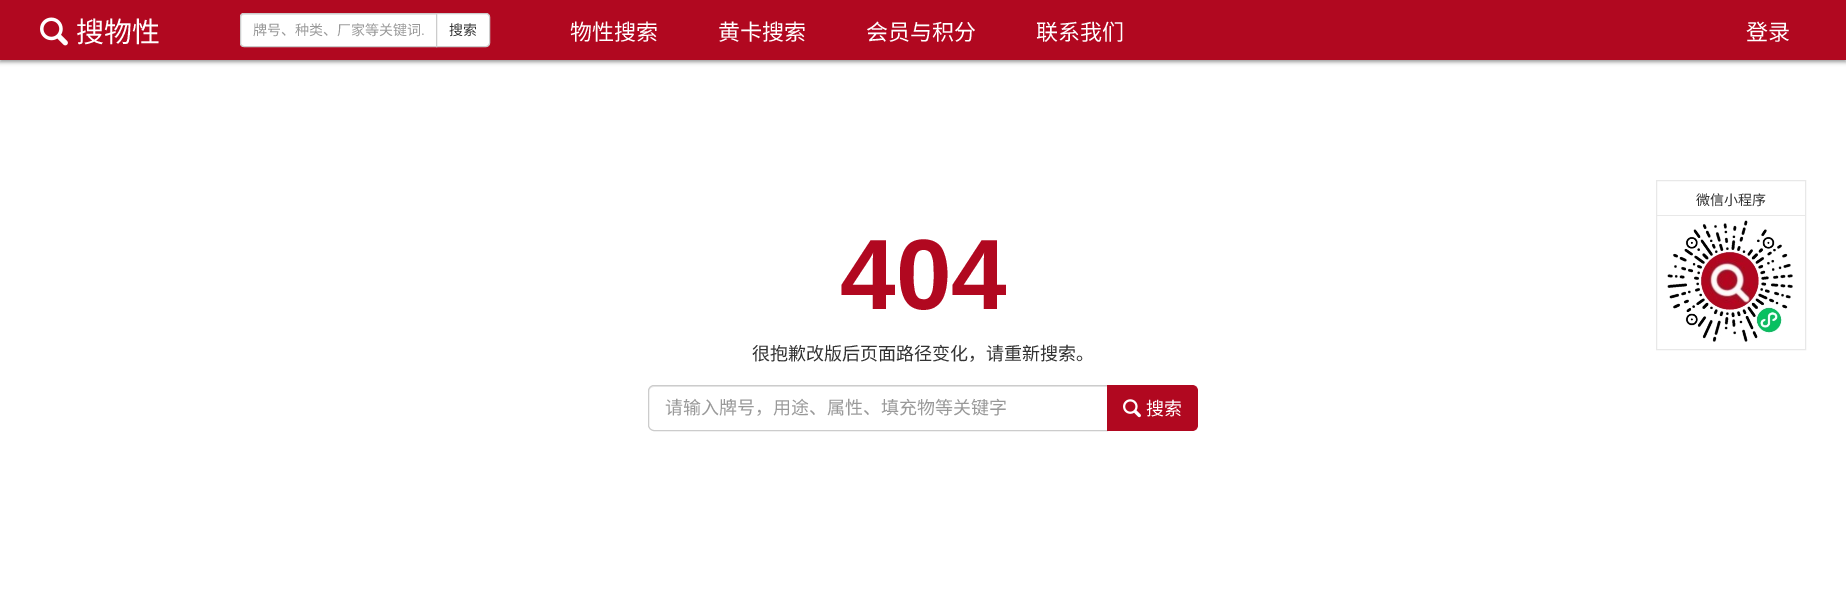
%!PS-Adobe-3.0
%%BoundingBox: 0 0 1846 616
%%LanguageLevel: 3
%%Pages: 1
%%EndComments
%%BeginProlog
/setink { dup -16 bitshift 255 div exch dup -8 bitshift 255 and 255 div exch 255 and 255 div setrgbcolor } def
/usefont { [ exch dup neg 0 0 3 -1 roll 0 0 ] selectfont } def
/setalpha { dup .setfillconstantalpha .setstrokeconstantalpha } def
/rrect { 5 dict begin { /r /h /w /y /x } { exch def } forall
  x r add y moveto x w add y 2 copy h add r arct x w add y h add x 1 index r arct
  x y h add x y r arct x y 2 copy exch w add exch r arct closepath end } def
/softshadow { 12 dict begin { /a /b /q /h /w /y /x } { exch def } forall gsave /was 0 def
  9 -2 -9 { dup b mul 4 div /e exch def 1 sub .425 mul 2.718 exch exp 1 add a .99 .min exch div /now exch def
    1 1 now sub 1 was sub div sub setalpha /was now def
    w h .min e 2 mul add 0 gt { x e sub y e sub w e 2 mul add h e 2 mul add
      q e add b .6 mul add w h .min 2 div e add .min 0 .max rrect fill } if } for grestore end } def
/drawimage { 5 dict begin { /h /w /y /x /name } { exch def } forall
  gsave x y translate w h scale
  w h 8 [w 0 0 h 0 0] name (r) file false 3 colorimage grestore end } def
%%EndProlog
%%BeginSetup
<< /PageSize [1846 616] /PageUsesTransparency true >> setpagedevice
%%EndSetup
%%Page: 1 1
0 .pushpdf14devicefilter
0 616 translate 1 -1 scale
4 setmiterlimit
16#FFFFFF setink
0 0 1846 616 rectfill
16#000000 setink
0 2 1846 60 0 2 0.4 softshadow
16#B10820 setink
0 0 1846 60 rectfill
(img1.raw) 40 17 28 29 drawimage
/NotoSansCJKSC-Regular 28 usefont
16#FFFFFF setink
76 42 moveto (搜物性) show
244 13 moveto 437 13 lineto 437 47 lineto 244 47 lineto 242 47 240 45 240 43 curveto 240 17 lineto 240 15 242 13 244 13 curveto closepath fill
16#ECECEC setink
244 15 moveto 436 15 lineto 436 14 lineto 244 14 lineto 242 14 241 16 241 18 curveto 241 16 242 15 244 15 curveto closepath fill
16#CCCCCC setink
244 13.5 moveto 436.5 13.5 lineto 436.5 46.5 lineto 244 46.5 lineto 242 46.5 240.5 45 240.5 43 curveto 240.5 17 lineto 240.5 15 242 13.5 244 13.5 curveto closepath stroke
/NotoSansCJKSC-Regular 14 usefont
16#999999 setink
253 35 moveto (牌号、种类、厂家等关键词) show
/LiberationSans-Regular 14 usefont
421 35 moveto (.) show
16#FFFFFF setink
436.5 13.5 moveto 486 13.5 lineto 488 13.5 489.5 15 489.5 17 curveto 489.5 43 lineto 489.5 45 488 46.5 486 46.5 curveto 436.5 46.5 lineto closepath gsave fill grestore
16#CCCCCC setink
stroke
/NotoSansCJKSC-Regular 14 usefont
16#333333 setink
449 35 moveto (搜索) show
/NotoSansCJKSC-Regular 22 usefont
16#FFFFFF setink
[
    [(物性搜索) 570 40]
    [(黄卡搜索) 718 40]
    [(会员与积分) 866 40]
    [(联系我们) 1036 40]
    [(登录) 1746 40]
] { aload pop moveto show } forall
16#E8E8E8 setink
1656.5 180.5 149 169 rectstroke
1657 215 148 1 rectfill
/NotoSansCJKSC-Regular 14 usefont
16#333333 setink
1696 205 moveto (微信小程序) show
(img2.raw) 1667 220 126 122 drawimage
/LiberationSans-Bold 100 usefont
16#B10820 setink
840 309 moveto (404) show
/NotoSansCJKSC-Regular 18 usefont
16#333333 setink
752 360 moveto (很抱歉改版后页面路径变化，请重新搜索。) show
16#ECECEC setink
654 387 moveto 1107 387 lineto 1107 386 lineto 654 386 lineto 651 386 649 389 649 392 curveto 649 389 651 387 654 387 curveto closepath fill
16#CCCCCC setink
654 385.5 moveto 1107.5 385.5 lineto 1107.5 430.5 lineto 654 430.5 lineto 651 430.5 648.5 428 648.5 425 curveto 648.5 391 lineto 648.5 388 651 385.5 654 385.5 curveto closepath stroke
16#999999 setink
665 414 moveto (请输入牌号，用途、属性、填充物等关键字) show
16#B10820 setink
1107 385 moveto 1192 385 lineto 1195.5 385 1198 387.5 1198 391 curveto 1198 425 lineto 1198 428.5 1195.5 431 1192 431 curveto 1107 431 lineto closepath fill
(img3.raw) 1123 399 18 19 drawimage
16#FFFFFF setink
1146 415 moveto (搜索) show
.poppdf14devicefilter showpage
%%EOF
